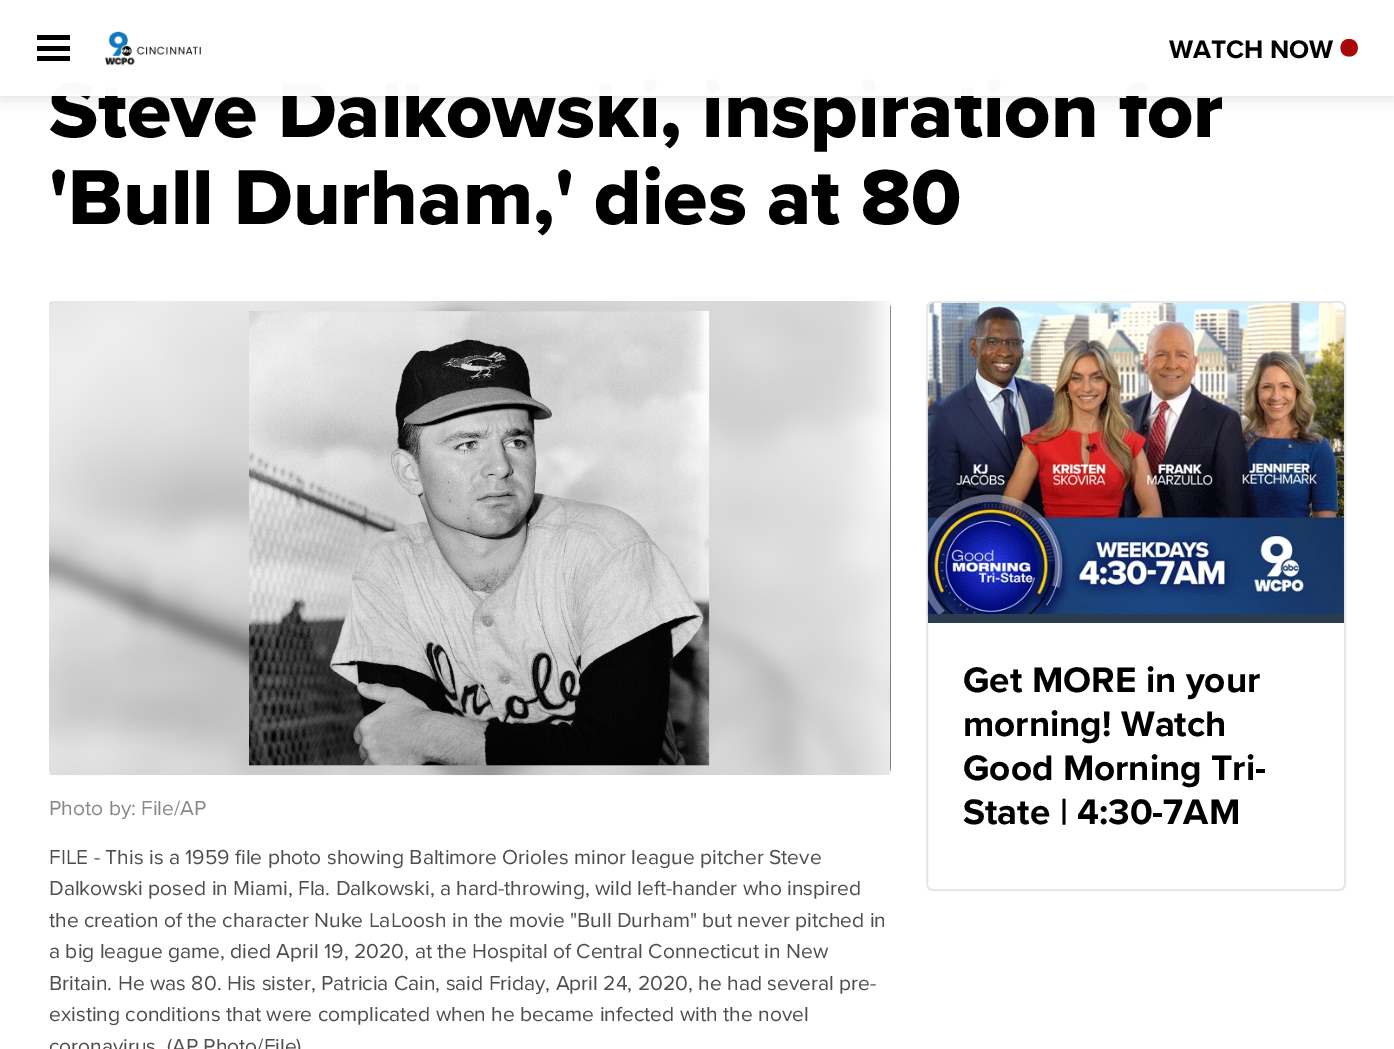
%!PS-Adobe-3.0
%%BoundingBox: 0 0 1394 1049
%%LanguageLevel: 3
%%Pages: 1
%%EndComments
%%BeginProlog
/setink { dup -16 bitshift 255 div exch dup -8 bitshift 255 and 255 div exch 255 and 255 div setrgbcolor } def
/usefont { [ exch dup neg 0 0 3 -1 roll 0 0 ] selectfont } def
/setalpha { dup .setfillconstantalpha .setstrokeconstantalpha } def
/rrect { 5 dict begin { /r /h /w /y /x } { exch def } forall
  x r add y moveto x w add y 2 copy h add r arct x w add y h add x 1 index r arct
  x y h add x y r arct x y 2 copy exch w add exch r arct closepath end } def
/softshadow { 12 dict begin { /a /b /q /h /w /y /x } { exch def } forall gsave /was 0 def
  9 -2 -9 { dup b mul 4 div /e exch def 1 sub .425 mul 2.718 exch exp 1 add a .99 .min exch div /now exch def
    1 1 now sub 1 was sub div sub setalpha /was now def
    w h .min e 2 mul add 0 gt { x e sub y e sub w e 2 mul add h e 2 mul add
      q e add b .6 mul add w h .min 2 div e add .min 0 .max rrect fill } if } for grestore end } def
/drawimage { 5 dict begin { /h /w /y /x /name } { exch def } forall
  gsave x y translate w h scale
  w h 8 [w 0 0 h 0 0] name (r) file false 3 colorimage grestore end } def
%%EndProlog
%%BeginSetup
<< /PageSize [1394 1049] /PageUsesTransparency true >> setpagedevice
%%EndSetup
%%Page: 1 1
0 .pushpdf14devicefilter
0 1049 translate 1 -1 scale
4 setmiterlimit
16#FFFFFF setink
0 0 1394 1049 rectfill
gsave
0 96 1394 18 rectclip
16#CCCCCC setink
0 0 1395 96 0 9 0.8 softshadow
grestore
/ProximaNova-ExtraBold 80.5 usefont
16#000000 setink
49 137 moveto (Steve Dalkowski, inspiration for) show
0.98 setalpha
[
    [52 79 1097 17 16#FFFFFF]
] { aload pop setink rectfill } forall
1 setalpha
[
    [37 35 33 5 16#000000]
    [37 46 33 5 16#000000]
    [37 56 33 5 16#000000]
] { aload pop setink rectfill } forall
(img1.raw) 105 31 96 35 drawimage
/ProximaNova-Bold 26.25 usefont
1169 58 moveto (WATCH NOW) show
16#A70808 setink
1349 56.5 moveto 1361 56.5 1360.5 39 1349 39 curveto 1338 39 1337.5 56.5 1349 56.5 curveto closepath fill
/ProximaNova-ExtraBold 80.5 usefont
16#000000 setink
49 224 moveto ('Bull Durham,' dies at 80) show
16#E7E7E7 setink
2 setlinewidth
927 302 418 588 6 rrect stroke
(img2.raw) 927 303 417 313 drawimage
16#2A3C4F setink
928 614 416 9 rectfill
/ProximaNova-Bold 36.75 usefont
16#000000 setink
[
    [(Get MORE in your) 963 692]
    [(morning! Watch) 963 736]
    [(Good Morning Tri-) 963 780]
    [(State | 4:30-7AM) 963 824]
] { aload pop moveto show } forall
49 301 842 474 7 rrect fill
(img3.raw) 49 301 842 475 drawimage
/ProximaNova-Regular 21 usefont
16#888888 setink
49 815 moveto (Photo by: File/AP) show
16#4D4D4D setink
[
    [(FILE - This is a 1959 file photo showing Baltimore Orioles minor league pitcher Steve) 49 864]
    [(Dalkowski posed in Miami, Fla. Dalkowski, a hard-throwing, wild left-hander who inspired) 49 895]
    [(the creation of the character Nuke LaLoosh in the movie "Bull Durham" but never pitched in) 49 927]
    [(a big league game, died April 19, 2020, at the Hospital of Central Connecticut in New) 49 958]
    [(Britain. He was 80. His sister, Patricia Cain, said Friday, April 24, 2020, he had several pre-) 49 990]
    [(existing conditions that were complicated when he became infected with the novel) 49 1021]
    [(coronavirus. \(AP Photo/File\)) 49 1053]
] { aload pop moveto show } forall
.poppdf14devicefilter showpage
%%EOF
